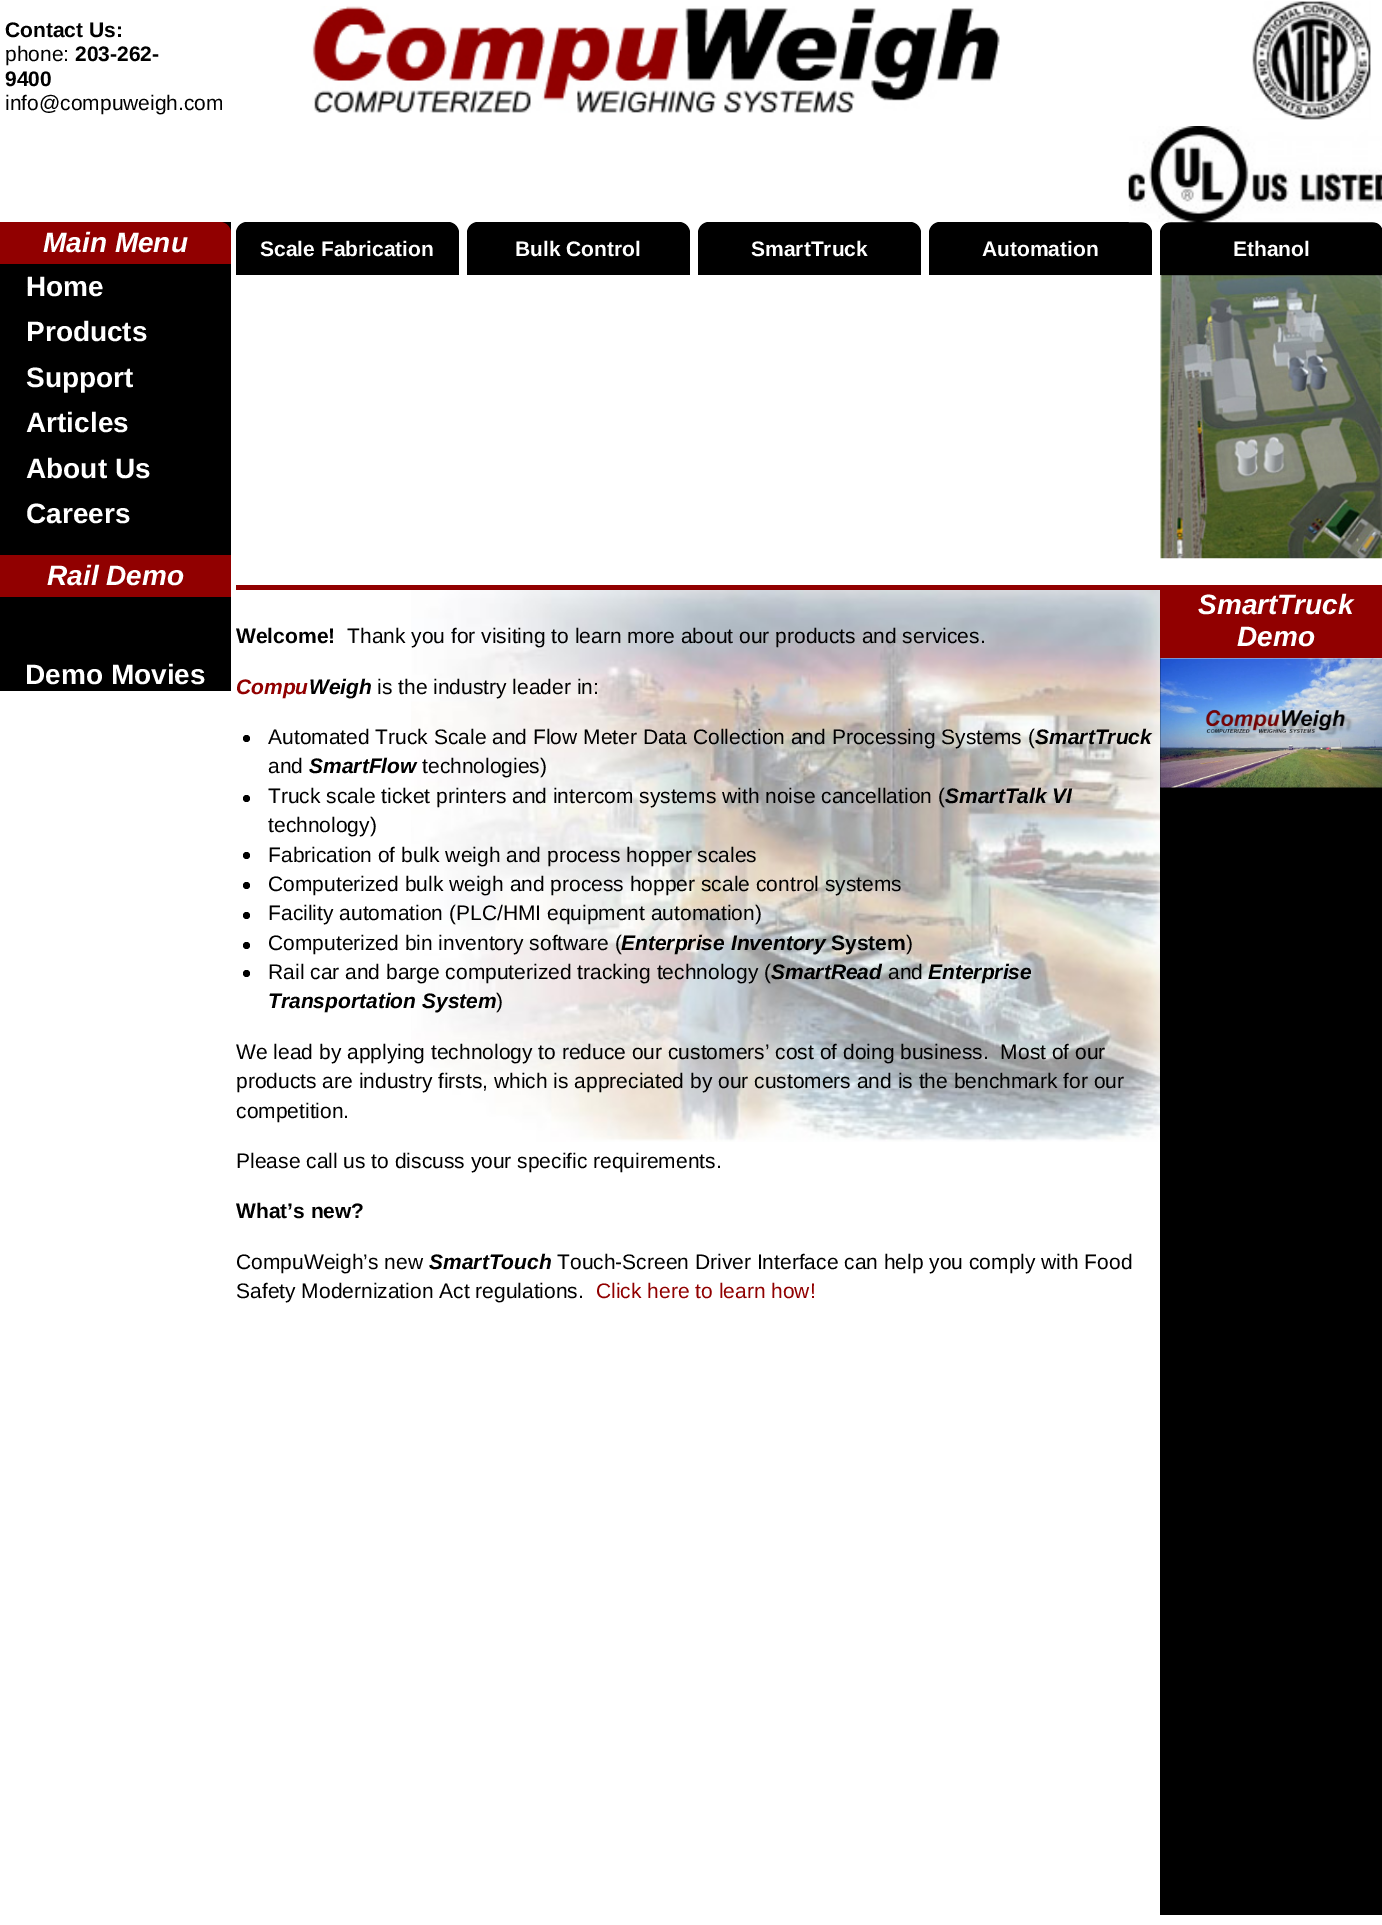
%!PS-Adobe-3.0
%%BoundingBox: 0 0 1382 1925
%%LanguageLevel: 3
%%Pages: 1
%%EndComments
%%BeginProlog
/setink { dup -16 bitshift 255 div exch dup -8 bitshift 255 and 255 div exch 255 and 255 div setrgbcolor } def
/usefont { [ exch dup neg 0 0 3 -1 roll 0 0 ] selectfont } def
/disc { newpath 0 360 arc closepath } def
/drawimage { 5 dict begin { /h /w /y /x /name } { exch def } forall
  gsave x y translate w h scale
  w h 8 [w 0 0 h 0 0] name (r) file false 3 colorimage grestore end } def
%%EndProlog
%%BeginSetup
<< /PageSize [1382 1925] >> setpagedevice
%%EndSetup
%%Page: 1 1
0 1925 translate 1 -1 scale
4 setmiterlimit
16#FFFFFF setink
0 0 1382 1925 rectfill
/LiberationSans-Bold 21 usefont
16#000000 setink
5 37 moveto (Contact Us:) show
/LiberationSans-Regular 21 usefont
5 61 moveto (phone:) show
/LiberationSans-Bold 21 usefont
75 61 moveto (203-262-) show
5 86 moveto (9400) show
/LiberationSans-Regular 21 usefont
5 110 moveto (info@compuweigh.com) show
(img1.raw) 312 6 688 107 drawimage
(img2.raw) 1252 1 119 119 drawimage
940 222 moveto 1141 222 lineto 1147 222 1152 227 1152 233 curveto 1152 275 lineto 929 275 lineto 929 233 lineto 929 227 934 222 940 222 curveto closepath fill
1171 222 moveto 1372 222 lineto 1378 222 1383 227 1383 233 curveto 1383 275 lineto 1160 275 lineto 1160 233 lineto 1160 227 1165 222 1171 222 curveto closepath fill
(img3.raw) 1128 126 254 97 drawimage
0 222 231 469 rectfill
16#910000 setink
0 222 moveto 220 222 lineto 226 222 231 227 231 233 curveto 231 264 lineto 0 264 lineto closepath fill
/LiberationSans-BoldItalic 28 usefont
16#FFFFFF setink
43 252 moveto (Main Menu) show
/LiberationSans-Bold 28 usefont
[
    [(Home) 26 296]
    [(Products) 26 341]
    [(Support) 26 387]
    [(Articles) 26 432]
    [(About Us) 26 478]
    [(Careers) 26 523]
] { aload pop moveto show } forall
16#910000 setink
0 555 231 42 rectfill
/LiberationSans-BoldItalic 28 usefont
16#FFFFFF setink
47 585 moveto (Rail Demo) show
/LiberationSans-Bold 28 usefont
25 684 moveto (Demo Movies) show
16#000000 setink
247 222 moveto 448 222 lineto 454 222 459 227 459 233 curveto 459 275 lineto 236 275 lineto 236 233 lineto 236 227 241 222 247 222 curveto closepath fill
/LiberationSans-Bold 21 usefont
16#FFFFFF setink
260 256 moveto (Scale Fabrication) show
16#000000 setink
478 222 moveto 679 222 lineto 685 222 690 227 690 233 curveto 690 275 lineto 467 275 lineto 467 233 lineto 467 227 472 222 478 222 curveto closepath fill
16#FFFFFF setink
515 256 moveto (Bulk Control) show
16#000000 setink
709 222 moveto 910 222 lineto 916 222 921 227 921 233 curveto 921 275 lineto 698 275 lineto 698 233 lineto 698 227 703 222 709 222 curveto closepath fill
16#FFFFFF setink
[
    [(SmartTruck) 751 256]
    [(Automation) 982 256]
    [(Ethanol) 1233 256]
] { aload pop moveto show } forall
(img4.raw) 1160 275 222 284 drawimage
16#000000 setink
1160 658 222 1257 rectfill
16#910000 setink
1160 585 222 73 rectfill
/LiberationSans-BoldItalic 28 usefont
16#FFFFFF setink
1198 614 moveto (SmartTruck) show
1237 646 moveto (Demo) show
(img5.raw) 1160 658 222 130 drawimage
(img6.raw) 411 590 749 552 drawimage
16#910000 setink
236 585 924 5 rectfill
/LiberationSans-Bold 21 usefont
16#000000 setink
236 643 moveto (Welcome!) show
/LiberationSans-Regular 21 usefont
347 643 moveto (Thank you for visiting to learn more about our products and services.) show
/LiberationSans-BoldItalic 21 usefont
16#910000 setink
236 694 moveto (Compu) show
16#000000 setink
309 694 moveto (Weigh) show
/LiberationSans-Regular 21 usefont
377 694 moveto (is the industry leader in:) show
246.5 738.5 3.5 disc fill
268 744 moveto (Automated Truck Scale and Flow Meter Data Collection and Processing Systems \() show
/LiberationSans-BoldItalic 21 usefont
1035 744 moveto (SmartTruck) show
/LiberationSans-Regular 21 usefont
268 773 moveto (and) show
/LiberationSans-BoldItalic 21 usefont
309 773 moveto (SmartFlow) show
/LiberationSans-Regular 21 usefont
422 773 moveto (technologies\)) show
246.5 798.5 3.5 disc fill
268 803 moveto (Truck scale ticket printers and intercom systems with noise cancellation \() show
/LiberationSans-BoldItalic 21 usefont
945 803 moveto (SmartTalk VI) show
/LiberationSans-Regular 21 usefont
268 832 moveto (technology\)) show
246.5 855.5 3.5 disc fill
268 862 moveto (Fabrication of bulk weigh and process hopper scales) show
246.5 885.5 3.5 disc fill
268 891 moveto (Computerized bulk weigh and process hopper scale control systems) show
246.5 915.5 3.5 disc fill
268 920 moveto (Facility automation \(PLC/HMI equipment automation\)) show
246.5 945.5 3.5 disc fill
268 950 moveto (Computerized bin inventory software \() show
/LiberationSans-BoldItalic 21 usefont
621 950 moveto (Enterprise Inventory) show
/LiberationSans-Bold 21 usefont
831 950 moveto (System) show
/LiberationSans-Regular 21 usefont
906 950 moveto (\)) show
246.5 973.5 3.5 disc fill
268 979 moveto (Rail car and barge computerized tracking technology \() show
/LiberationSans-BoldItalic 21 usefont
771 979 moveto (SmartRead) show
/LiberationSans-Regular 21 usefont
888 979 moveto (and) show
/LiberationSans-BoldItalic 21 usefont
928 979 moveto (Enterprise) show
268 1008 moveto (Transportation System) show
/LiberationSans-Regular 21 usefont
[
    [(\)) 496 1008]
    [(We lead by applying technology to reduce our customers’ cost of doing business.  Most of our) 236 1059]
    [(products are industry firsts, which is appreciated by our customers and is the benchmark for our) 236 1088]
    [(competition.) 236 1118]
    [(Please call us to discuss your specific requirements.) 236 1168]
] { aload pop moveto show } forall
/LiberationSans-Bold 21 usefont
236 1218 moveto (What’s new?) show
/LiberationSans-Regular 21 usefont
236 1269 moveto (CompuWeigh’s new) show
/LiberationSans-BoldItalic 21 usefont
429 1269 moveto (SmartTouch) show
/LiberationSans-Regular 21 usefont
557 1269 moveto (Touch-Screen Driver Interface can help you comply with Food) show
236 1298 moveto (Safety Modernization Act regulations.) show
16#910000 setink
596 1298 moveto (Click here to learn how!) show
showpage
%%EOF
